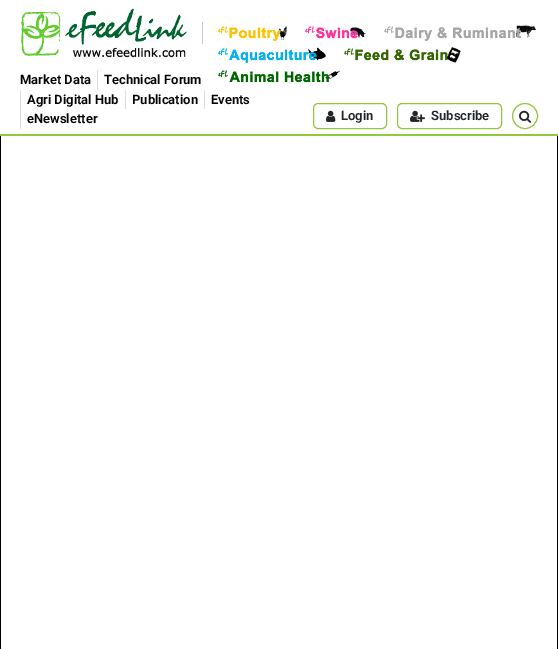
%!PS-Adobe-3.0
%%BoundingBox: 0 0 558 649
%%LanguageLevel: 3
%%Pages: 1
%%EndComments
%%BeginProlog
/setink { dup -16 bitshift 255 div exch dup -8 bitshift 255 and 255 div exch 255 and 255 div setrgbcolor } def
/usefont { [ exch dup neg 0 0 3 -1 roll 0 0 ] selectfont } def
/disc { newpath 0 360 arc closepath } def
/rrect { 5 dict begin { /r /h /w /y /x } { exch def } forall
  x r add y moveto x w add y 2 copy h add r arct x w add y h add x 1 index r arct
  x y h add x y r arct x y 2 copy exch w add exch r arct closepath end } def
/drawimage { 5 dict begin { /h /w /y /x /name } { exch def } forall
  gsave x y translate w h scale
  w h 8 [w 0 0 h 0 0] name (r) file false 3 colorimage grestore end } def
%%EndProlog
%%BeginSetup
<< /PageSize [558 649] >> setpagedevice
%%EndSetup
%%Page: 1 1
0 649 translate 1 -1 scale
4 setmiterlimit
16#FFFFFF setink
0 0 558 649 rectfill
(img1.raw) 21 8 166 50 drawimage
16#C6C8CA setink
202 22 1 22 rectfill
(img2.raw) 218 26 69 15 drawimage
(img3.raw) 305 26 61 13 drawimage
(img4.raw) 384 25 152 16 drawimage
(img5.raw) 218 47 108 16 drawimage
(img6.raw) 344 47 117 16 drawimage
(img7.raw) 218 70 122 13 drawimage
16#92C83E setink
0 134 558 2 rectfill
/Roboto-SemiBold 13 usefont
16#000000 setink
20 84 moveto (Market Data) show
16#DEDEDE setink
97 70 1 20 rectfill
16#000000 setink
104 84 moveto (Technical Forum) show
16#DEDEDE setink
20 90 1 39 rectfill
16#000000 setink
27 104 moveto (Agri Digital Hub) show
16#DEDEDE setink
125 90 1 19 rectfill
16#000000 setink
132 104 moveto (Publication) show
16#DEDEDE setink
204 90 1 19 rectfill
16#000000 setink
211 104 moveto (Events) show
27 123 moveto (eNewsletter) show
16#92C83E setink
313.5 103.5 73 25 4.5 rrect stroke
(img8.raw) 326 110 10 12 drawimage
16#212529 setink
341 120 moveto (Login) show
16#92C83E setink
397.5 103.5 104 25 4.5 rrect stroke
(img9.raw) 410 110 15 12 drawimage
16#212529 setink
431 120 moveto (Subscribe) show
16#92C83E setink
525 116 12.5 disc stroke
(img10.raw) 519 110 12 13 drawimage
16#000000 setink
557 136 1 513 rectfill
0 136 1 513 rectfill
showpage
%%EOF
